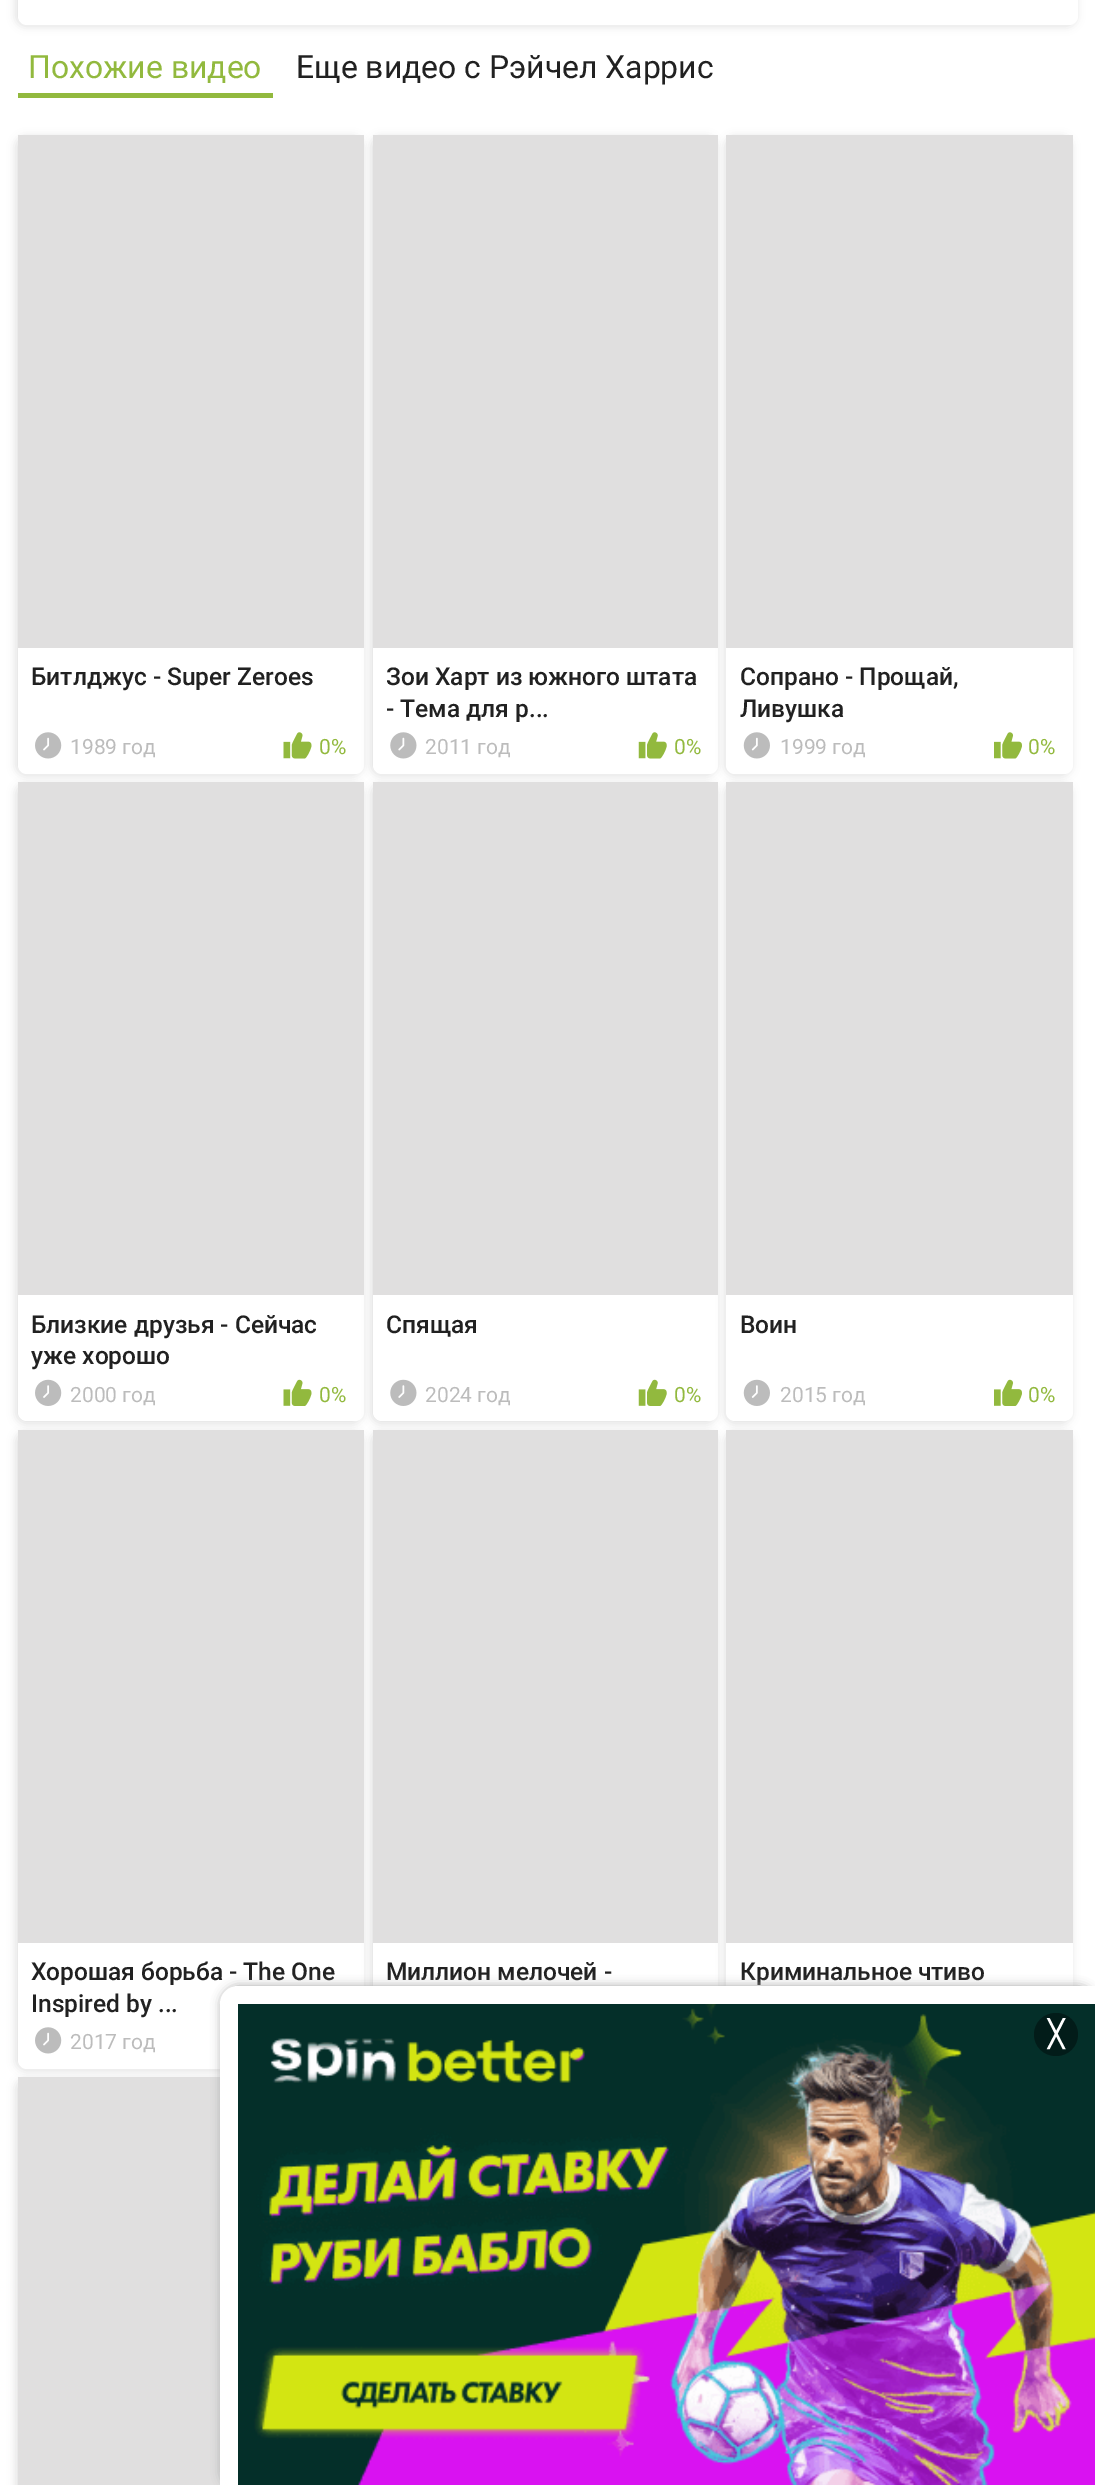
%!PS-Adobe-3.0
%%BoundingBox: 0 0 1095 2485
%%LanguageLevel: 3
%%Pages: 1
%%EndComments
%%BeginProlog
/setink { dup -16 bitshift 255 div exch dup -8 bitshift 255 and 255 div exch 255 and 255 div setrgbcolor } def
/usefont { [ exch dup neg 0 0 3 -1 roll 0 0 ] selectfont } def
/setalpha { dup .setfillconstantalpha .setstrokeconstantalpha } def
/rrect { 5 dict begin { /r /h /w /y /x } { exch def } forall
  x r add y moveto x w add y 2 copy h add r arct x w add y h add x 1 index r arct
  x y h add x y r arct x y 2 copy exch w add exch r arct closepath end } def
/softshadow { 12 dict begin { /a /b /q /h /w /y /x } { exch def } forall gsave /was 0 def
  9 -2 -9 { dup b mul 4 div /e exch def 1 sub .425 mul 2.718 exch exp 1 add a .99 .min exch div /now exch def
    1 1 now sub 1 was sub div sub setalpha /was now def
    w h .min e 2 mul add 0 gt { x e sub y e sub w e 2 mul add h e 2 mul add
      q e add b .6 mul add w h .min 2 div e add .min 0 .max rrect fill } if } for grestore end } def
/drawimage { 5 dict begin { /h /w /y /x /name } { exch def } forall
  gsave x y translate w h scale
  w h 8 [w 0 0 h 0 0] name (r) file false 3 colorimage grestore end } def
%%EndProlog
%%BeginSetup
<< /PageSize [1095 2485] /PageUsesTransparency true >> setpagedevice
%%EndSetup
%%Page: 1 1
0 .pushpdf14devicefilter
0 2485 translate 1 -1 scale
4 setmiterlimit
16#FFFFFF setink
0 0 1095 2485 rectfill
16#CFCFCF setink
16 -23 1060 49 9 4.5 0.65 softshadow
16#FFFFFF setink
18 -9 1060 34 9 rrect fill
/Roboto-Regular 31.9 usefont
16#92B93E setink
28 78 moveto (Похожие видео) show
18 93 255 5 rectfill
16#212121 setink
296 78 moveto (Еще видео с Рэйчел Харрис) show
16#CFCFCF setink
16 137 346 638 9 4.5 0.65 softshadow
16#FFFFFF setink
18 135 moveto 364 135 lineto 364 765 lineto 364 770 360 774 355 774 curveto 27 774 lineto 22 774 18 770 18 765 curveto closepath fill
16#CFCFCF setink
371 137 345 638 9 4.5 0.65 softshadow
16#E0DFDF setink
18 135 346 513 rectfill
/Roboto-Medium 24.5 usefont
16#212121 setink
31 685 moveto (Битлджус - Super Zeroes) show
(img1.raw) 35 732 27 27 drawimage
/Roboto-Regular 21 usefont
16#BCBCBC setink
70 754 moveto (1989 год) show
(img2.raw) 283 732 29 27 drawimage
16#92B93E setink
319 754 moveto (0%) show
16#FFFFFF setink
373 135 moveto 718 135 lineto 718 765 lineto 718 770 714 774 709 774 curveto 382 774 lineto 377 774 373 770 373 765 curveto closepath fill
16#CFCFCF setink
725 137 346 638 9 4.5 0.65 softshadow
16#E0DFDF setink
373 135 345 513 rectfill
/Roboto-Medium 24.5 usefont
16#212121 setink
386 685 moveto (Зои Харт из южного штата) show
386 717 moveto (- Тема для р...) show
(img3.raw) 390 732 27 27 drawimage
/Roboto-Regular 21 usefont
16#BCBCBC setink
425 754 moveto (2011 год) show
(img4.raw) 638 732 29 27 drawimage
16#92B93E setink
674 754 moveto (0%) show
16#FFFFFF setink
726 135 moveto 1073 135 lineto 1073 765 lineto 1073 770 1069 774 1064 774 curveto 735 774 lineto 730 774 726 770 726 765 curveto closepath fill
16#E0DFDF setink
726 135 347 513 rectfill
/Roboto-Medium 24.5 usefont
16#212121 setink
740 685 moveto (Сопрано - Прощай,) show
740 717 moveto (Ливушка) show
(img5.raw) 743 732 27 27 drawimage
/Roboto-Regular 21 usefont
16#BCBCBC setink
780 754 moveto (1999 год) show
(img6.raw) 994 732 28 27 drawimage
16#92B93E setink
1028 754 moveto (0%) show
16#CFCFCF setink
16 784 346 639 9 4.5 0.65 softshadow
16#FFFFFF setink
18 782 moveto 364 782 lineto 364 1412 lineto 364 1417 360 1421 355 1421 curveto 27 1421 lineto 22 1421 18 1417 18 1412 curveto closepath fill
16#CFCFCF setink
371 784 345 639 9 4.5 0.65 softshadow
16#E0DFDF setink
18 782 346 513 rectfill
/Roboto-Medium 24.5 usefont
16#212121 setink
31 1333 moveto (Близкие друзья - Сейчас) show
31 1364 moveto (уже хорошо) show
(img7.raw) 35 1379 27 27 drawimage
/Roboto-Regular 21 usefont
16#BCBCBC setink
70 1402 moveto (2000 год) show
(img8.raw) 283 1379 29 27 drawimage
16#92B93E setink
319 1402 moveto (0%) show
16#FFFFFF setink
373 782 moveto 718 782 lineto 718 1412 lineto 718 1417 714 1421 709 1421 curveto 382 1421 lineto 377 1421 373 1417 373 1412 curveto closepath fill
16#CFCFCF setink
725 784 346 639 9 4.5 0.65 softshadow
16#E0DFDF setink
373 782 345 513 rectfill
/Roboto-Medium 24.5 usefont
16#212121 setink
386 1333 moveto (Спящая) show
(img9.raw) 390 1379 27 27 drawimage
/Roboto-Regular 21 usefont
16#BCBCBC setink
425 1402 moveto (2024 год) show
(img10.raw) 638 1379 29 27 drawimage
16#92B93E setink
674 1402 moveto (0%) show
16#FFFFFF setink
726 782 moveto 1073 782 lineto 1073 1412 lineto 1073 1417 1069 1421 1064 1421 curveto 735 1421 lineto 730 1421 726 1417 726 1412 curveto closepath fill
16#E0DFDF setink
726 782 347 513 rectfill
/Roboto-Medium 24.5 usefont
16#212121 setink
740 1333 moveto (Воин) show
(img11.raw) 743 1379 27 27 drawimage
/Roboto-Regular 21 usefont
16#BCBCBC setink
780 1402 moveto (2015 год) show
(img12.raw) 994 1379 28 27 drawimage
16#92B93E setink
1028 1402 moveto (0%) show
16#CFCFCF setink
16 1432 346 638 9 4.5 0.65 softshadow
16#FFFFFF setink
18 1430 moveto 364 1430 lineto 364 2060 lineto 364 2065 360 2069 355 2069 curveto 27 2069 lineto 22 2069 18 2065 18 2060 curveto closepath fill
16#CFCFCF setink
371 1432 345 638 9 4.5 0.65 softshadow
16#E0DFDF setink
18 1430 346 513 rectfill
/Roboto-Medium 24.5 usefont
16#212121 setink
31 1980 moveto (Хорошая борьба - The One) show
31 2012 moveto (Inspired by ...) show
(img1.raw) 35 2027 27 27 drawimage
/Roboto-Regular 21 usefont
16#BCBCBC setink
70 2049 moveto (2017 год) show
16#FFFFFF setink
373 1943 345 43 rectfill
16#CFCFCF setink
725 1432 346 638 9 4.5 0.65 softshadow
16#E0DFDF setink
373 1430 345 513 rectfill
/Roboto-Medium 24.5 usefont
16#212121 setink
386 1980 moveto (Миллион мелочей -) show
16#FFFFFF setink
726 1943 347 43 rectfill
16#E0DFDF setink
726 1430 347 513 rectfill
16#212121 setink
740 1980 moveto (Криминальное чтиво) show
16#CFCFCF setink
16 2079 346 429 9 4.5 0.65 softshadow
16#E0DFDF setink
18 2077 202 408 rectfill
16#A7A7A7 setink
221 1986 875 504 18 5 1 softshadow
16#FFFFFF setink
238 1986 moveto 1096 1986 lineto 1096 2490 lineto 220 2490 lineto 220 2004 lineto 220 1994 228 1986 238 1986 curveto closepath 238 2004 moveto 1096 2004 lineto 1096 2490 lineto 238 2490 lineto closepath eofill
(img13.raw) 238 2004 857 481 drawimage
16#021C19 setink
1034 2013 44 43 21.5 rrect fill
/DejaVuSans-Bold 26 usefont
16#FFFFFF setink
1048 2043 moveto (╳) show
.poppdf14devicefilter showpage
%%EOF
